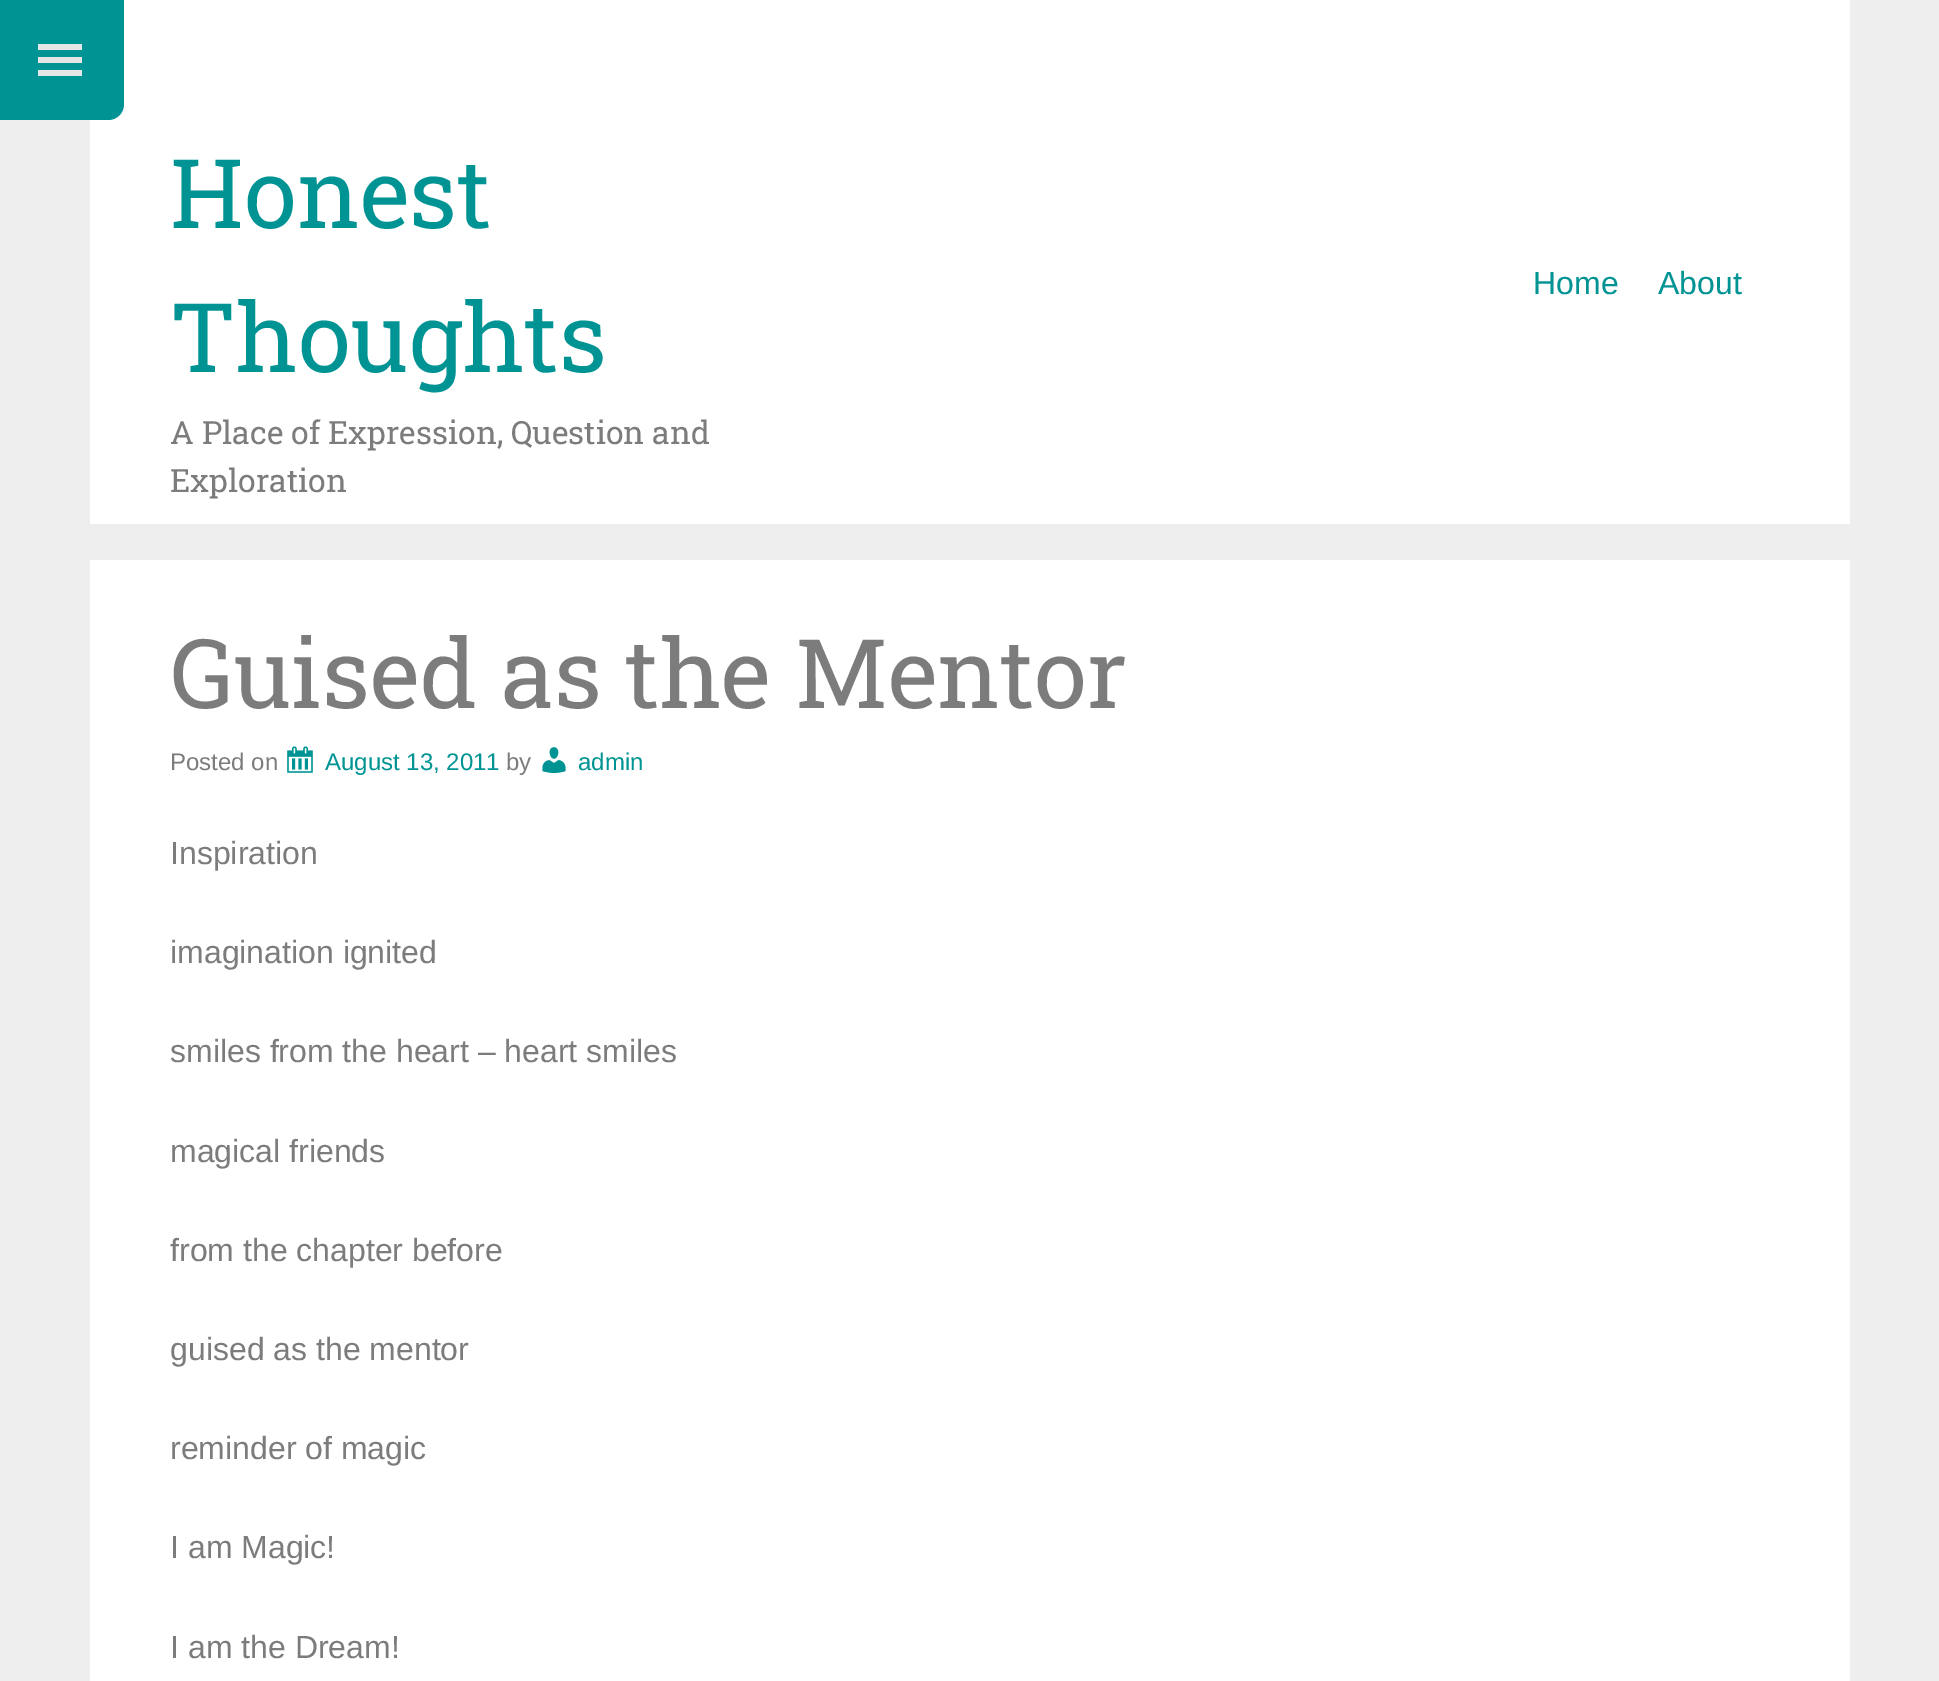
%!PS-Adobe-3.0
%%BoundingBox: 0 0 1939 1681
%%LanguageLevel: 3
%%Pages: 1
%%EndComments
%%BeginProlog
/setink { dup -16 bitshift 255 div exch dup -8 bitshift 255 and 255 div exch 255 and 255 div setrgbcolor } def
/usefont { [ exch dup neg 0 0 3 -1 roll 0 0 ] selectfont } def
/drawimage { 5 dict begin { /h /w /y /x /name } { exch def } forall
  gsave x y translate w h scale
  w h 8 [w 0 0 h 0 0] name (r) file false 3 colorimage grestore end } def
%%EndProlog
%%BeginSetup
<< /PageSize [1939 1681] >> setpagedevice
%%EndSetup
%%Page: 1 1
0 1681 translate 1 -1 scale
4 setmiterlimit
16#EEEEEE setink
0 0 1939 1681 rectfill
16#FFFFFF setink
90 0 1760 1681 rectfill
16#009393 setink
0 0 moveto 124 0 lineto 124 104 lineto 124 113 117 120 108 120 curveto 0 120 lineto closepath fill
16#E6E6E6 setink
38 76 moveto 82 76 lineto 82 70 lineto 38 70 lineto closepath 38 44 moveto 38 50 lineto 82 50 lineto 82 44 lineto closepath 38 63 moveto 82 63 lineto 82 57 lineto 38 57 lineto closepath fill
16#EEEEEE setink
90 524 1760 36 rectfill
/RobotoSlab-Regular 96 usefont
16#009393 setink
170 228 moveto (Honest) show
170 372 moveto (Thoughts) show
/RobotoSlab-Regular 32 usefont
16#7C7C7C setink
170 444 moveto (A Place of Expression, Question and) show
170 492 moveto (Exploration) show
/LiberationSans-Regular 32 usefont
16#009393 setink
1533 294 moveto (Home) show
1658 294 moveto (About) show
/RobotoSlab-Regular 96 usefont
16#7C7C7C setink
170 708 moveto (Guised as the Mentor) show
/LiberationSans-Regular 24 usefont
170 770 moveto (Posted on) show
(img1.raw) 287 746 26 27 drawimage
16#009393 setink
325 770 moveto (August 13, 2011) show
16#7C7C7C setink
506 770 moveto (by) show
(img2.raw) 542 747 24 27 drawimage
16#009393 setink
578 770 moveto (admin) show
/LiberationSans-Regular 32 usefont
16#7C7C7C setink
[
    [(Inspiration) 170 864]
    [(imagination ignited) 170 963]
    [(smiles from the heart – heart smiles) 170 1062]
    [(magical friends) 170 1162]
    [(from the chapter before) 170 1261]
    [(guised as the mentor) 170 1360]
    [(reminder of magic) 170 1459]
    [(I am Magic!) 170 1558]
    [(I am the Dream!) 170 1658]
] { aload pop moveto show } forall
showpage
%%EOF
